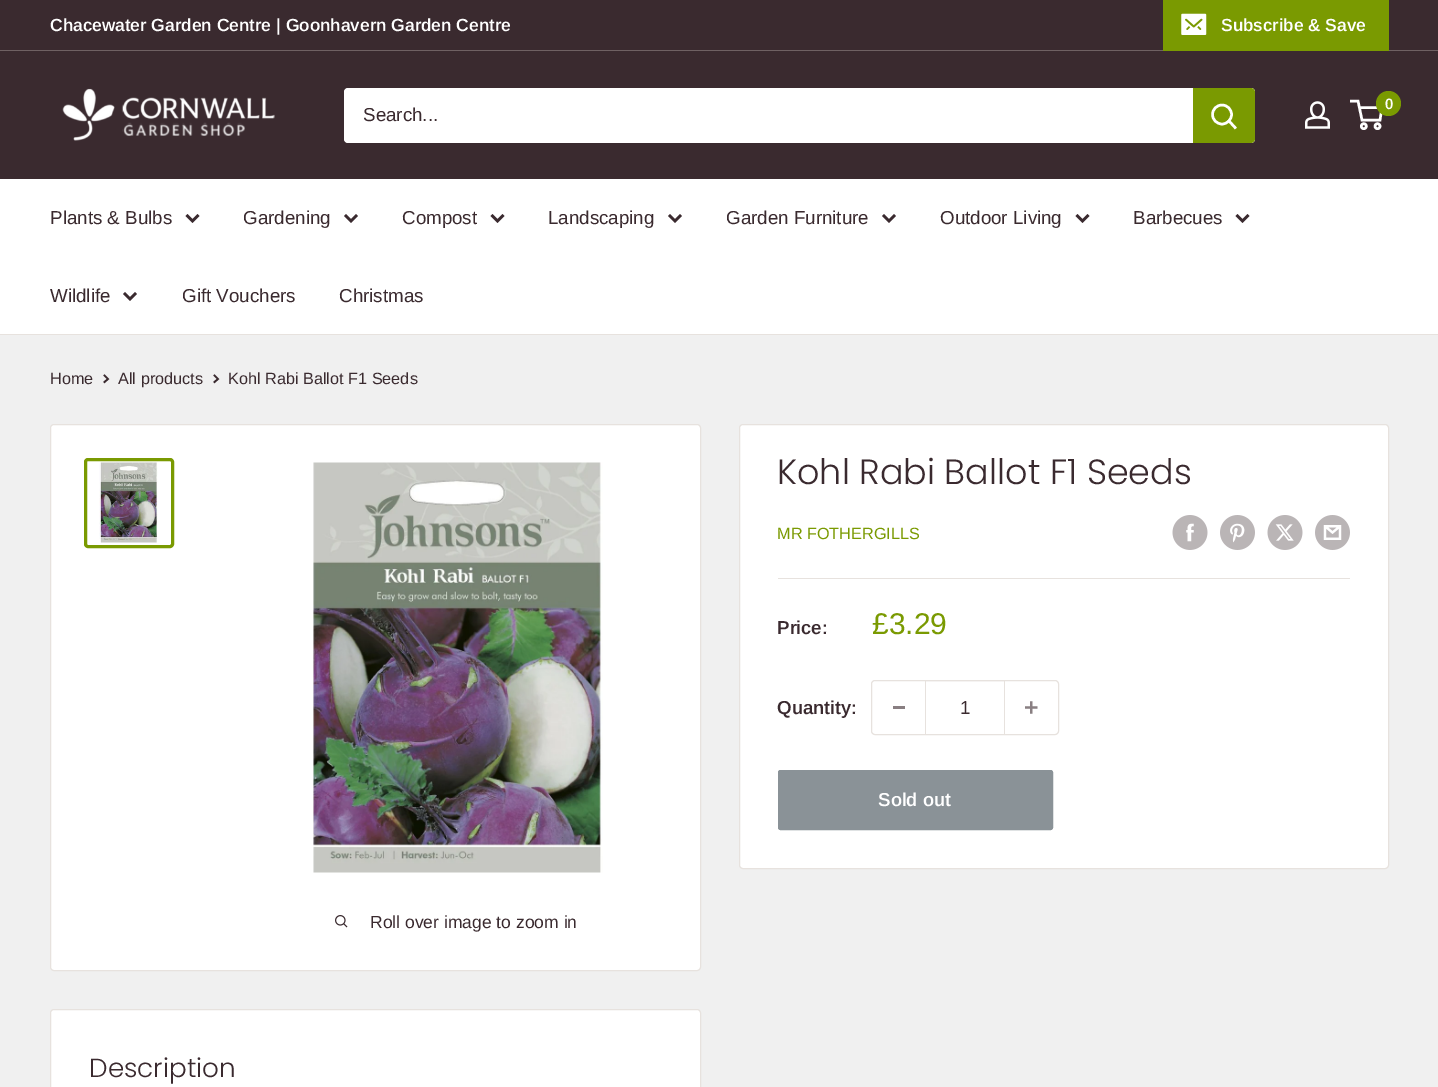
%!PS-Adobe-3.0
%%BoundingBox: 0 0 1438 1087
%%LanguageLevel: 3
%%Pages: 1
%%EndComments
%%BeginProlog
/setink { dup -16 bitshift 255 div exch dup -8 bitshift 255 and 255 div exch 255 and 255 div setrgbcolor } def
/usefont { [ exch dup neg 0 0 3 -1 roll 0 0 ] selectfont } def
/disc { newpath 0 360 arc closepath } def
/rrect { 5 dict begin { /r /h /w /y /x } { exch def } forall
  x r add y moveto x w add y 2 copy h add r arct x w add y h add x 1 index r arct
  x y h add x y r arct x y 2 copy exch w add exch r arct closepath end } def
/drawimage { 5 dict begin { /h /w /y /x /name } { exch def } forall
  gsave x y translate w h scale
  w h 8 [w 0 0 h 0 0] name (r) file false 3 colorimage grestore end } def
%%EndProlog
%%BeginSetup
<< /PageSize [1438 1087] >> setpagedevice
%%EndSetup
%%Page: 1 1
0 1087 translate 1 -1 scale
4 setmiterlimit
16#F0F0F0 setink
0 0 1438 1087 rectfill
16#3A2A2F setink
0 0 1438 50 rectfill
16#6F6163 setink
0 50 1438 1 rectfill
/Arimo-SemiBold 17.5 usefont
16#FFFFFF setink
50 31 moveto (Chacewater Garden Centre | Goonhavern Garden Centre) show
16#7A9A01 setink
1163 50 moveto 1163 51 lineto 1389 51 lineto 1389 1 lineto 1389 50 lineto closepath fill
1163 0 226 50 rectfill
(img1.raw) 1181 13 26 22 drawimage
16#FFFFFF setink
1221 31 moveto (Subscribe & Save) show
16#3A2A2F setink
0 51 1438 128 rectfill
(img2.raw) 62 88 213 53 drawimage
(img3.raw) 1305 101 25 28 drawimage
16#FFFFFF setink
2.5 setlinewidth
1363.8 126.2 2.5 disc stroke
1377.5 126.2 2.5 disc stroke
1359 107.5 moveto 1382 107.5 lineto 1380 120 lineto 1362 120 lineto 1358 101 lineto 1350 101 lineto stroke
16#7A9A01 setink
1388.5 103.5 12.5 disc fill
/Arimo-SemiBold 15 usefont
16#FFFFFF setink
1385 109 moveto (0) show
344 88 911 55 4 rrect fill
/Arimo-Regular 18.75 usefont
16#3A2A2F setink
363 121 moveto (Search...) show
16#7A9A01 setink
1193 88 moveto 1251 88 lineto 1253 88 1255 90 1255 92 curveto 1255 139 lineto 1255 141 1253 143 1251 143 curveto 1193 143 lineto closepath fill
16#FFFFFF setink
2 setlinecap
1235 127.5 moveto 1229 121 lineto stroke
0 setlinecap
1222 114.5 9.5 disc stroke
0 179 1438 155 rectfill
16#E7E2DE setink
0 334 1438 1 rectfill
16#3A2A2F setink
50 224 moveto (Plants & Bulbs) show
2 setlinecap
197.5 216 moveto 192.5 221 lineto 187.5 216 lineto stroke
243 224 moveto (Gardening) show
356 216 moveto 351 221 lineto 346 216 lineto stroke
402 224 moveto (Compost) show
502.5 216 moveto 497.5 221 lineto 492.5 216 lineto stroke
548 224 moveto (Landscaping) show
680 216 moveto 675 221 lineto 670 216 lineto stroke
726 224 moveto (Garden Furniture) show
894 216 moveto 889 221 lineto 884 216 lineto stroke
940 224 moveto (Outdoor Living) show
1087.5 216 moveto 1082.5 221 lineto 1077.5 216 lineto stroke
1133 224 moveto (Barbecues) show
1247.5 216 moveto 1242.5 221 lineto 1237.5 216 lineto stroke
50 302 moveto (Wildlife) show
135 294 moveto 130 299 lineto 125 294 lineto stroke
182 302 moveto (Gift Vouchers) show
339 302 moveto (Christmas) show
/Arimo-Regular 16.25 usefont
50 384 moveto (Home) show
1.7 setlinewidth
104.5 375.5 moveto 108 379 lineto 104.5 382 lineto stroke
118 384 moveto (All products) show
214.5 375.5 moveto 218 379 lineto 214.5 382 lineto stroke
228 384 moveto (Kohl Rabi Ballot F1 Seeds) show
16#FFFFFF setink
739.5 424.5 649 444 3.5 rrect gsave fill grestore
16#E7E2DE setink
1 setlinewidth
0 setlinecap
stroke
/Poppins-Light 35 usefont
16#3A2A2F setink
777 484 moveto (Kohl Rabi Ballot F1 Seeds) show
/Arimo-Regular 16.25 usefont
16#7A9A01 setink
777 539 moveto (MR FOTHERGILLS) show
(img4.raw) 1172 515 36 35 drawimage
(img5.raw) 1220 515 35 35 drawimage
(img6.raw) 1267 515 36 35 drawimage
(img7.raw) 1315 515 35 35 drawimage
16#E7E2DE setink
778 578 572 1 rectfill
/Arimo-SemiBold 18.75 usefont
16#3A2A2F setink
777 634 moveto (Price:) show
/Arimo-Regular 30 usefont
16#7A9A01 setink
872 634 moveto (£3.29) show
/Arimo-SemiBold 18.75 usefont
16#3A2A2F setink
777 714 moveto (Quantity:) show
16#E7E2DE setink
871.5 680.5 187 54 3.5 rrect stroke
[
    [893 706 12 3 16#897F82]
    [926 681 78 1 16#F5F3F2]
    [1004 681 1 53 16#E7E2DE]
    [925 681 1 53 16#E7E2DE]
] { aload pop setink rectfill } forall
/Arimo-Regular 18.75 usefont
16#3A2A2F setink
960 714 moveto (1) show
(img8.raw) 1025 701 13 13 drawimage
16#8A9297 setink
778.5 770.5 274 59 2 rrect gsave fill grestore
stroke
/Arimo-SemiBold 18.75 usefont
16#FFFFFF setink
878 806 moveto (Sold out) show
50.5 424.5 650 546 3.5 rrect gsave fill grestore
16#E7E2DE setink
stroke
16#7A9A01 setink
3 setlinewidth
85.5 459.5 87 87 2.5 rrect stroke
(img9.raw) 99 462 59 81 drawimage
(img10.raw) 313 462 290 411 drawimage
(img11.raw) 335 915 13 13 drawimage
/Arimo-Regular 17.5 usefont
16#3A2A2F setink
370 928 moveto (Roll over image to zoom in) show
16#FFFFFF setink
50.5 1009.5 650 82 3.5 rrect gsave fill grestore
16#E7E2DE setink
1 setlinewidth
stroke
/Poppins-Light 26.25 usefont
16#3A2A2F setink
89 1077 moveto (Description) show
showpage
%%EOF
